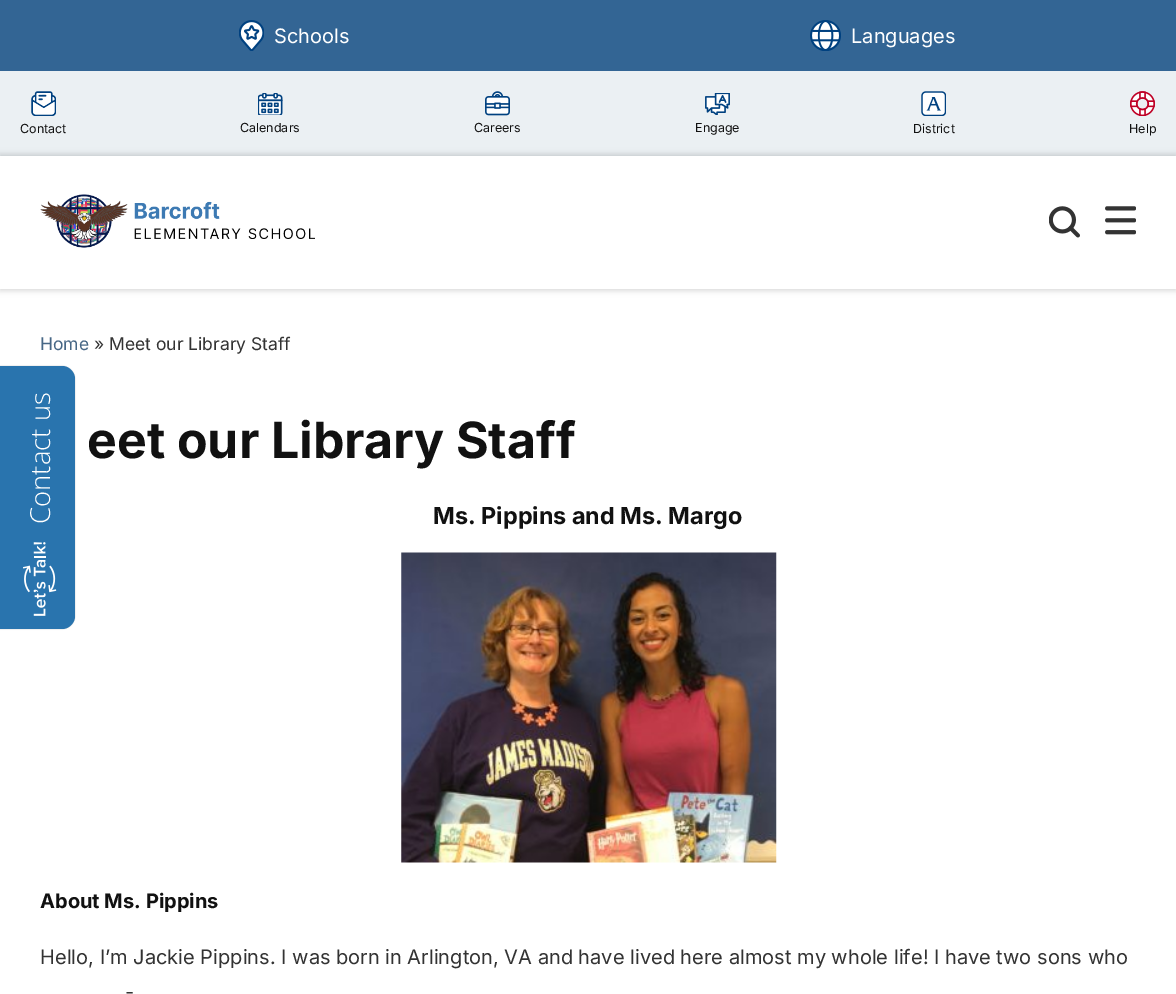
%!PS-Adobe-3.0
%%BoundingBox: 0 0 1176 994
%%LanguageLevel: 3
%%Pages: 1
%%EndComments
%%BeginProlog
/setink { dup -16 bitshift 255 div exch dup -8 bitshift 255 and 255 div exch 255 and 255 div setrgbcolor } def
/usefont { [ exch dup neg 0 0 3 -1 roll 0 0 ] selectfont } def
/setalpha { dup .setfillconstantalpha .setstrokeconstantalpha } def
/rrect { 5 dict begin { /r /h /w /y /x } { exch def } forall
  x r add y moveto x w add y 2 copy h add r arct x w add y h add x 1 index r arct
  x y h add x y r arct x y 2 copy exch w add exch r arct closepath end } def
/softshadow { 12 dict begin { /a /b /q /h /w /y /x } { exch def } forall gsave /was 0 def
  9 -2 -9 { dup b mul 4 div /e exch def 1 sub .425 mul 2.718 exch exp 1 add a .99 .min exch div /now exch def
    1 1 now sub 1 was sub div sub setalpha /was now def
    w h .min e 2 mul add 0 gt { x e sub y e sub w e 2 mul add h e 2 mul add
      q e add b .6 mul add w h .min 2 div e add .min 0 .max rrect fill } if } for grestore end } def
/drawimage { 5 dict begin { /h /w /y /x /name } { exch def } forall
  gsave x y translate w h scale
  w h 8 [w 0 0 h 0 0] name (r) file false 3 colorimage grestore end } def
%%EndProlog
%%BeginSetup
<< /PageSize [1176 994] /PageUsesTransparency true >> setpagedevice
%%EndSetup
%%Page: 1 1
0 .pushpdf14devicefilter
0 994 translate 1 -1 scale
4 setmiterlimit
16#FFFFFF setink
0 0 1176 994 rectfill
16#336594 setink
0 0 1176 71 rectfill
(img1.raw) 239 20 25 31 drawimage
/Inter-Regular 20 usefont
16#FFFFFF setink
274 43 moveto (Schools) show
(img2.raw) 810 20 31 31 drawimage
851 43 moveto (Languages) show
16#EBF0F3 setink
0 71 1176 85 rectfill
(img3.raw) 31 91 25 25 drawimage
/Inter-Regular 12.5 usefont
16#111111 setink
20 133 moveto (Contact) show
(img4.raw) 258 93 25 22 drawimage
240 132 moveto (Calendars) show
(img5.raw) 485 91 25 25 drawimage
474 132 moveto (Careers) show
(img6.raw) 705 93 25 22 drawimage
695 132 moveto (Engage) show
(img7.raw) 921 91 25 25 drawimage
913 133 moveto (District) show
(img8.raw) 1130 91 25 25 drawimage
1129 133 moveto (Help) show
gsave
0 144 moveto 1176 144 lineto 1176 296 lineto 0 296 lineto closepath 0 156 moveto 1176 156 lineto 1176 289 lineto 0 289 lineto closepath eoclip newpath
16#000000 setink
0 154 1176 132 0 3 0.13 softshadow
grestore
gsave
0 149 moveto 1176 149 lineto 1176 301 lineto 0 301 lineto closepath 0 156 moveto 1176 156 lineto 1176 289 lineto 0 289 lineto closepath eoclip newpath
16#000000 setink
0 159 1176 132 0 3 0.13 softshadow
grestore
(img9.raw) 40 194 275 54 drawimage
(img10.raw) 1049 206 31 32 drawimage
(img11.raw) 1105 206 31 29 drawimage
/Inter-Regular 17.5 usefont
16#476786 setink
40 350 moveto (Home) show
16#333333 setink
94 350 moveto (» Meet our Library Staff) show
/Inter-Bold 50 usefont
16#111111 setink
87 458 moveto (eet our Library Staff) show
/Inter-Bold 23.4 usefont
433 524 moveto (Ms. Pippins and Ms. Margo) show
(img12.raw) 401 552 376 311 drawimage
/Inter-Bold 20 usefont
40 908 moveto (About Ms. Pippins) show
/Inter-Regular 20 usefont
16#333333 setink
40 964 moveto (Hello, I’m Jackie Pippins. I was born in Arlington, VA and have lived here almost my whole life! I have two sons who) show
125 999 moveto (-) show
16#000000 setink
-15 366 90 263 13 0.5 0.22 softshadow
16#2974AE setink
0 366 moveto 62 366 lineto 69 366 75 372 75 379 curveto 75 616 lineto 75 623 69 629 62 629 curveto 0 629 lineto closepath fill
/OpenSans-Light 27.5 usefont
16#FFFFFF setink
gsave 50 524 translate -90 rotate 0 0 moveto (Contact us) show grestore
(img13.raw) 23 542 34 74 drawimage
.poppdf14devicefilter showpage
%%EOF
